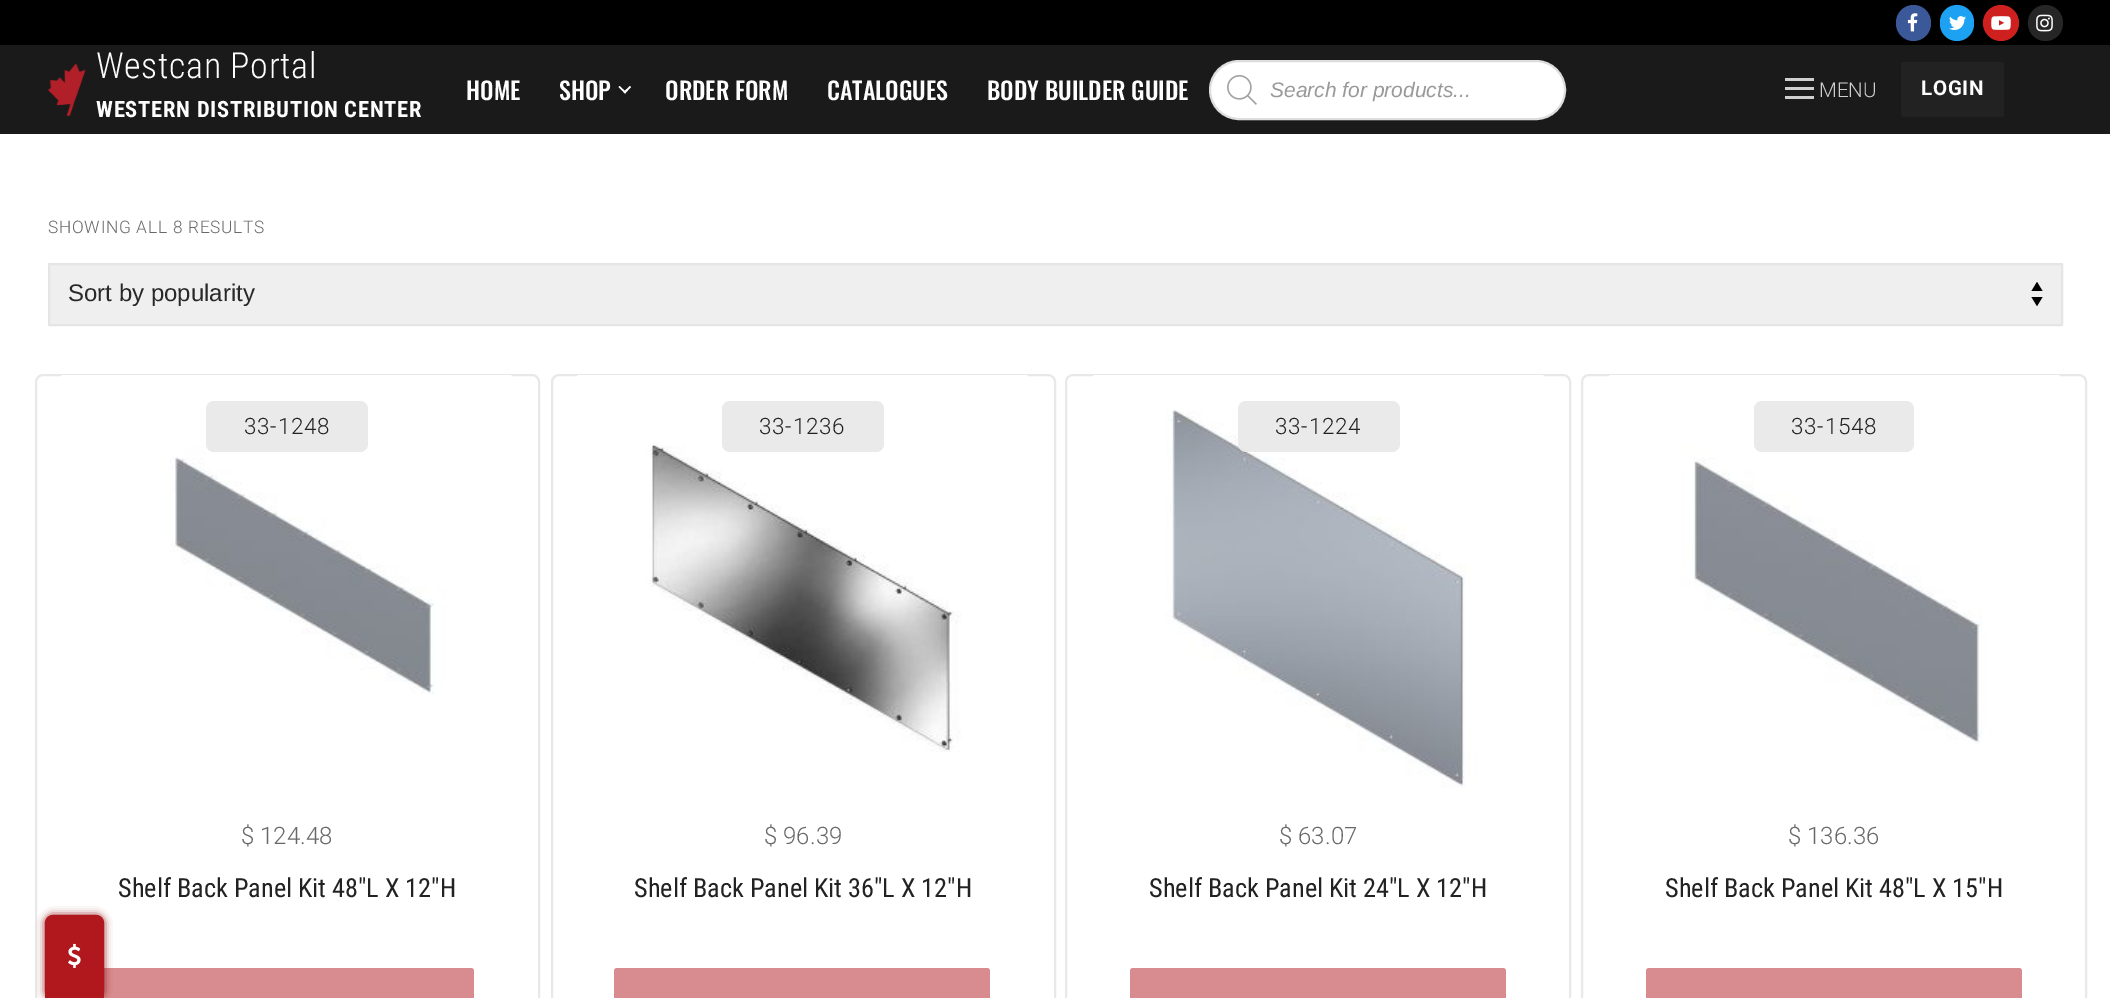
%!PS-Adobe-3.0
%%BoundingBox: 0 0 2110 998
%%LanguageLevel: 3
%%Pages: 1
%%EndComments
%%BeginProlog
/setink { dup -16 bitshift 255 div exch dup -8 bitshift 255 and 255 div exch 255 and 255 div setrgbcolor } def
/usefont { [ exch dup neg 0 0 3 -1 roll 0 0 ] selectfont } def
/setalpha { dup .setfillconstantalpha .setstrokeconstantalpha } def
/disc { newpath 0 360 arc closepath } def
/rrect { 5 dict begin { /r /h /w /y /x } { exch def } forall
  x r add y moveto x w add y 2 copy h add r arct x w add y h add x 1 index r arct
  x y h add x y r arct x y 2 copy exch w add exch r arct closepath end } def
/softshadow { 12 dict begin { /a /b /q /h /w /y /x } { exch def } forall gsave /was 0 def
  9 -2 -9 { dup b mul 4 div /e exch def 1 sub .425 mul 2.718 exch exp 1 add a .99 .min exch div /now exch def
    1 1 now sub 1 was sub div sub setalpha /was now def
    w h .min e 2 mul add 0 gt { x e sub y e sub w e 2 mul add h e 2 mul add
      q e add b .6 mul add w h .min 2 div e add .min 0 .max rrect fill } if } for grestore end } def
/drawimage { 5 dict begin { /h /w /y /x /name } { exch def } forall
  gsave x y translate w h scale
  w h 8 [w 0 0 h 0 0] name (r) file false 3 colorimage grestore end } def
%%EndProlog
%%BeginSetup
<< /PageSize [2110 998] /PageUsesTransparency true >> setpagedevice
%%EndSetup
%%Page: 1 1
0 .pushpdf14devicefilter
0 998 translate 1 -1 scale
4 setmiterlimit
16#FFFFFF setink
0 0 2110 998 rectfill
16#000000 setink
0 0 2110 45 rectfill
16#3B5998 setink
1896 5 35 36 17.5 rrect fill
(img1.raw) 1907 13 11 19 drawimage
16#1DA1F2 setink
1940 5 34 36 17 rrect fill
(img2.raw) 1949 16 17 14 drawimage
16#CD201F setink
2001 23 18 disc fill
(img3.raw) 1991 16 20 14 drawimage
16#262626 setink
2028 5 35 36 17.5 rrect fill
(img4.raw) 2036 14 17 18 drawimage
16#1A1A1A setink
0 45 2110 89 rectfill
(img5.raw) 48 63 38 54 drawimage
/RobotoCondensed-Light 36 usefont
16#FDFDFD setink
96 78 moveto 0.6 0 (Westcan Portal) ashow
/RobotoCondensed-Bold 22.5 usefont
96 117 moveto 0.75 0 (WESTERN DISTRIBUTION CENTER) ashow
/Oswald-Medium 24 usefont
466 100 moveto (HOME) show
559 100 moveto (SHOP) show
16#FFFFFF setink
625 93.5 moveto 618.5 87 lineto 619.5 86 lineto 626 92 lineto closepath fill
625 93.5 moveto 623.5 92 lineto 630 86 lineto 631 87 lineto closepath fill
16#FDFDFD setink
[
    [(ORDER FORM) 665 100]
    [(CATALOGUES) 827 100]
    [(BODY BUILDER GUIDE) 987 100]
] { aload pop moveto show } forall
16#FFFFFF setink
1210 61 355 58 29 rrect gsave fill grestore
16#DDDDDD setink
2 setlinewidth
stroke
(img6.raw) 1227 75 30 30 drawimage
/LiberationSans-Italic 21 usefont
16#999999 setink
1270 97 moveto (Search for products...) show
[
    [1785 87 29 3 16#CFCFCF]
    [1785 78 29 3 16#CFCFCF]
    [1785 96 29 3 16#CFCFCF]
] { aload pop setink rectfill } forall
/Roboto-Light 20.5 usefont
1819 97 moveto (MENU) show
16#222222 setink
1901 62 103 55 3 rrect fill
/Roboto-Bold 20.5 usefont
16#FDFDFD setink
1921 95 moveto 0.75 0 (LOGIN) ashow
/Roboto-Light 17.25 usefont
16#686868 setink
48 233 moveto 0.75 0 (SHOWING ALL 8 RESULTS) ashow
16#EFEFEF setink
48 263 2015 63 1.5 rrect fill
16#000000 setink
2037 282 moveto 2031.5 291 lineto 2042.5 291 lineto closepath 2037 306 moveto 2042.5 297 lineto 2031.5 297 lineto closepath fill
16#E5E5E5 setink
49 264 2013 61 0.5 rrect stroke
/LiberationSans-Regular 24 usefont
16#282828 setink
68 301 moveto (Sort by popularity) show
16#E8E8E8 setink
36 375 503 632 7 rrect stroke
(img7.raw) 61 375 451 319 drawimage
16#EAEAEA setink
206 401 162 51 8 rrect fill
/Roboto-Light 22.5 usefont
16#222222 setink
244 434 moveto 0.75 0 (33-1248) ashow
/RobotoCondensed-Regular 26.25 usefont
118 897 moveto (Shelf Back Panel Kit 48″L X 12″H) show
/Roboto-Light 24 usefont
16#686868 setink
241 844 moveto ($ 124.48) show
16#D88C8F setink
98 968 376 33 3 rrect fill
16#E8E8E8 setink
552 375 503 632 7 rrect stroke
(img8.raw) 577 375 451 377 drawimage
16#EAEAEA setink
722 401 162 51 8 rrect fill
/Roboto-Light 22.5 usefont
16#222222 setink
759 434 moveto 0.75 0 (33-1236) ashow
/RobotoCondensed-Regular 26.25 usefont
634 897 moveto (Shelf Back Panel Kit 36″L X 12″H) show
/Roboto-Light 24 usefont
16#686868 setink
764 844 moveto ($ 96.39) show
16#D88C8F setink
614 968 376 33 3 rrect fill
16#E8E8E8 setink
1066 375 504 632 7 rrect stroke
(img9.raw) 1093 375 451 413 drawimage
0.9 setalpha
1238 401 162 51 8 rrect fill
/Roboto-Light 22.5 usefont
1 setalpha
16#222222 setink
1275 434 moveto 0.75 0 (33-1224) ashow
/RobotoCondensed-Regular 26.25 usefont
1149 897 moveto (Shelf Back Panel Kit 24″L X 12″H) show
/Roboto-Light 24 usefont
16#686868 setink
1279 844 moveto ($ 63.07) show
16#D88C8F setink
1130 968 376 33 3 rrect fill
16#E8E8E8 setink
1582 375 504 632 7 rrect stroke
(img10.raw) 1609 375 451 369 drawimage
16#EAEAEA setink
1754 401 160 51 8 rrect fill
/Roboto-Light 22.5 usefont
16#222222 setink
1791 434 moveto 0.75 0 (33-1548) ashow
/RobotoCondensed-Regular 26.25 usefont
1665 897 moveto (Shelf Back Panel Kit 48″L X 15″H) show
/Roboto-Light 24 usefont
16#686868 setink
1788 844 moveto ($ 136.36) show
16#D88C8F setink
1646 968 376 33 3 rrect fill
16#8F0C0F setink
45 915 59 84 8 4 1 softshadow
16#B1181E setink
53 915 moveto 96 915 lineto 100.5 915 104 918.5 104 923 curveto 104 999 lineto 45 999 lineto 45 923 lineto 45 918.5 48.5 915 53 915 curveto closepath fill
(img11.raw) 68 943 13 25 drawimage
.poppdf14devicefilter showpage
%%EOF
